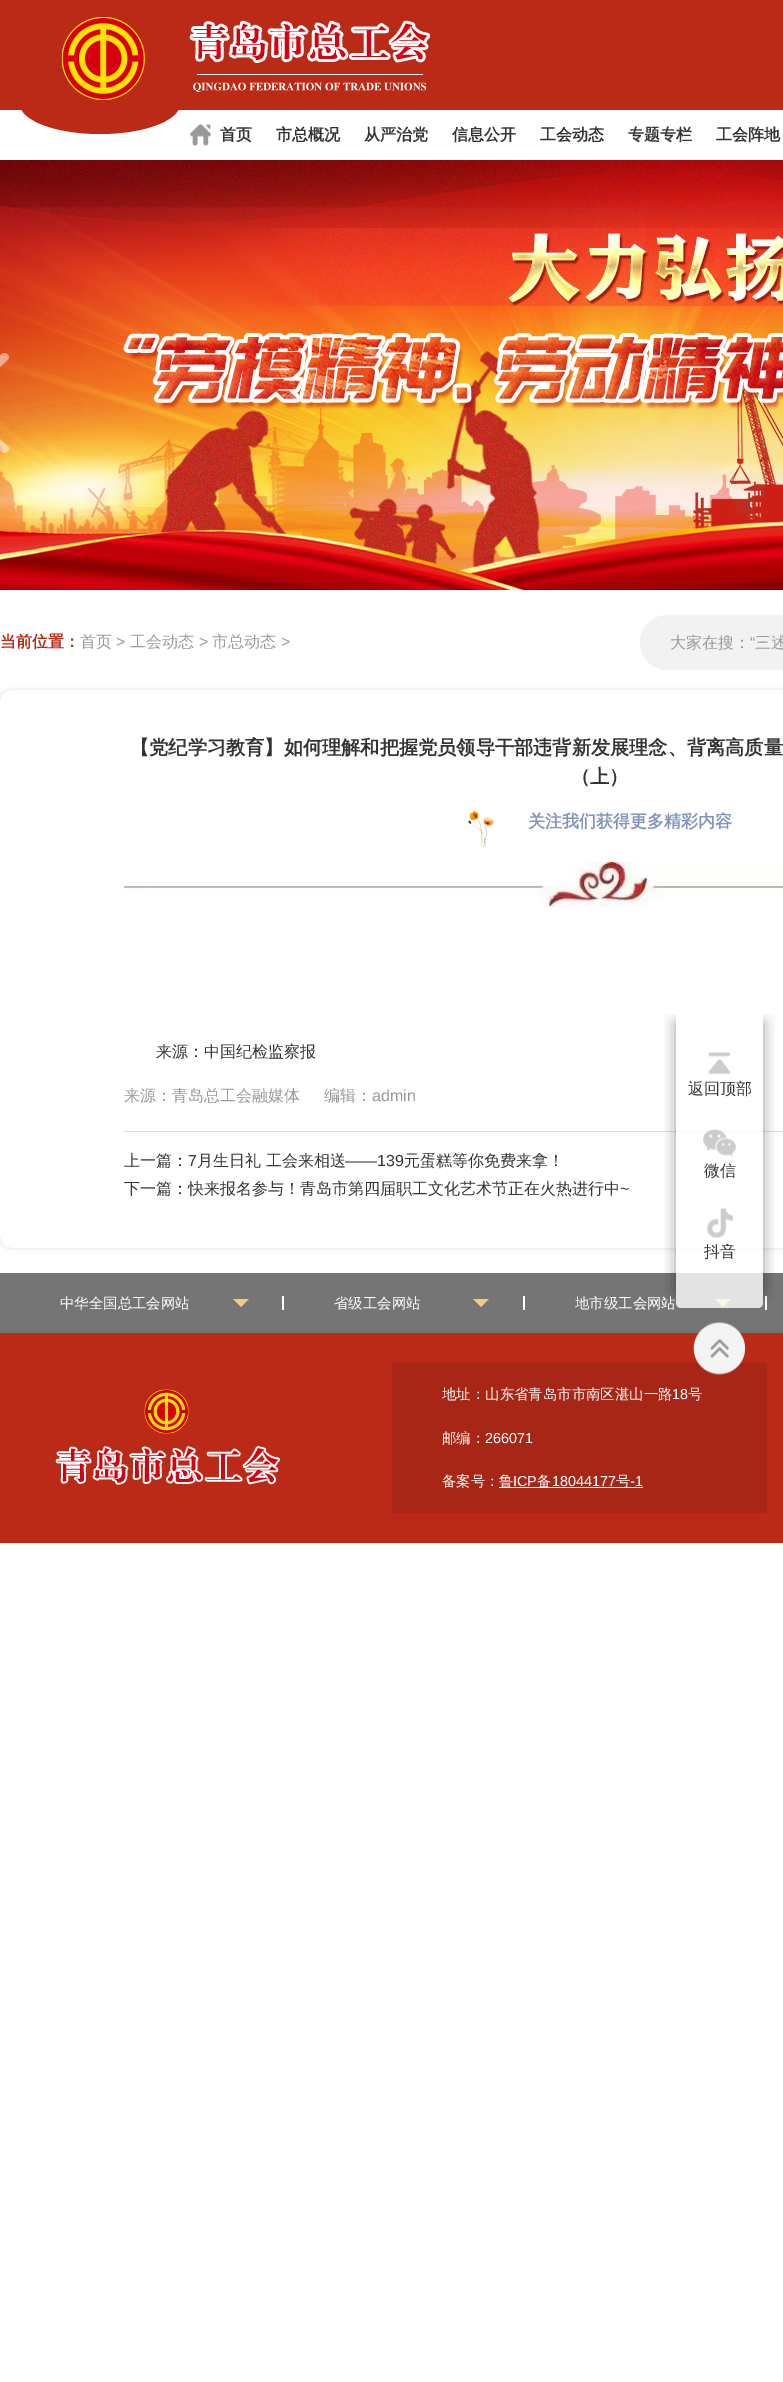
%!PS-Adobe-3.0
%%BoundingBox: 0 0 783 2382
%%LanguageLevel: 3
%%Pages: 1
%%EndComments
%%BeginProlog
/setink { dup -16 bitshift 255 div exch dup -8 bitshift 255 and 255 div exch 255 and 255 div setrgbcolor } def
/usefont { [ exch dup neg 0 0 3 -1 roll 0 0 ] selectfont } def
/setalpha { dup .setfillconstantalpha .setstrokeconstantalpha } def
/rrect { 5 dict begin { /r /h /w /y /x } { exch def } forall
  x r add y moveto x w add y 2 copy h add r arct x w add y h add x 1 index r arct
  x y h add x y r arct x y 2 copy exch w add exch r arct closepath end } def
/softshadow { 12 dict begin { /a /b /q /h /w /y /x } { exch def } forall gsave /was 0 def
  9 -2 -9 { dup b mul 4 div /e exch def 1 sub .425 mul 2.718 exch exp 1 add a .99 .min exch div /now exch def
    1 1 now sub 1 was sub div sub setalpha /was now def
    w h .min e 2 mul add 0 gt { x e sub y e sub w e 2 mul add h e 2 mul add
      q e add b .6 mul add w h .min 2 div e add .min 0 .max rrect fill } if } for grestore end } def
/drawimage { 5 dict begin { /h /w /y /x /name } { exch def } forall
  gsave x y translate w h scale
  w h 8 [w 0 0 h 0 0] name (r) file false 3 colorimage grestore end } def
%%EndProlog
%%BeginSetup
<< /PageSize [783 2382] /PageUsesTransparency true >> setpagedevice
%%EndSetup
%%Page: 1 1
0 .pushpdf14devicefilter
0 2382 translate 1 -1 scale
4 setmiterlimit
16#FFFFFF setink
0 0 783 2382 rectfill
16#BA2A17 setink
0 0 783 110 rectfill
100 74 moveto 144 74 180 87.5 180 104 curveto 180 120.5 144 134 100 134 curveto 56 134 20 120.5 20 104 curveto 20 87.5 56 74 100 74 curveto closepath fill
(img1.raw) 61 17 370 83 drawimage
(img2.raw) 190 124 21 22 drawimage
/WenQuanYiZenHei-Bold 16 usefont
16#333333 setink
[
    [(首页) 220 140]
    [(市总概况) 276 140]
    [(从严治党) 364 140]
    [(信息公开) 452 140]
    [(工会动态) 540 140]
    [(专题专栏) 628 140]
    [(工会阵地) 716 140]
] { aload pop moveto show } forall
(img3.raw) 0 160 783 430 drawimage
(img4.raw) 0 353 9 100 drawimage
16#BA2A17 setink
0 647 moveto (当前位置：) show
/WenQuanYiZenHei-Medium 16 usefont
16#999999 setink
80 647 moveto (首页) show
/LiberationSans-Regular 16 usefont
116 647 moveto (>) show
/WenQuanYiZenHei-Medium 16 usefont
130 647 moveto (工会动态) show
/LiberationSans-Regular 16 usefont
199 647 moveto (>) show
/WenQuanYiZenHei-Medium 16 usefont
212 647 moveto (市总动态) show
/LiberationSans-Regular 16 usefont
281 647 moveto (>) show
16#F2F2F2 setink
640 615 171 55 27.5 rrect fill
/WenQuanYiZenHei-Medium 16 usefont
16#999999 setink
670 648 moveto (大家在搜：) show
/LiberationSans-Regular 16 usefont
750 648 moveto (“) show
/WenQuanYiZenHei-Medium 16 usefont
755 648 moveto (三述) show
gsave
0 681 moveto 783 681 lineto 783 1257 lineto 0 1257 lineto closepath 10 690 moveto 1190 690 lineto 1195.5 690 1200 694.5 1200 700 curveto 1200 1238 lineto 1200 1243.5 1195.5 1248 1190 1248 curveto 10 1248 lineto 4.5 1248 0 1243.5 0 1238 curveto 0 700 lineto 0 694.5 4.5 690 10 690 curveto closepath eoclip newpath
16#E0E0E0 setink
0 690 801 558 10 2.5 1 softshadow
grestore
/WenQuanYiZenHei-Bold 19.2 usefont
16#333333 setink
130 754 moveto (【党纪学习教育】如何理解和把握党员领导干部违背新发展理念、背离高质量) show
571 783 moveto (（上）) show
16#DDDDDD setink
124 1131 659 1 rectfill
(img5.raw) 468 811 26 36 drawimage
/WenQuanYiZenHei-Bold 17 usefont
16#8294BC setink
528 827 moveto (关注我们获得更多精彩内容) show
(img6.raw) 124 862 659 45 drawimage
/WenQuanYiZenHei-Medium 16 usefont
16#333333 setink
156 1057 moveto (来源：中国纪检监察报) show
16#999999 setink
124 1101 moveto (来源：青岛总工会融媒体) show
324 1101 moveto (编辑：) show
/LiberationSans-Regular 16 usefont
372 1101 moveto (admin) show
/WenQuanYiZenHei-Medium 16 usefont
16#333333 setink
124 1166 moveto (上一篇：) show
/LiberationSans-Regular 16 usefont
188 1166 moveto (7) show
/WenQuanYiZenHei-Medium 16 usefont
197 1166 moveto (月生日礼 工会来相送) show
/LiberationSans-Regular 16 usefont
345 1166 moveto (——139) show
/WenQuanYiZenHei-Medium 16 usefont
404 1166 moveto (元蛋糕等你免费来拿！) show
124 1194 moveto (下一篇：快来报名参与！青岛市第四届职工文化艺术节正在火热进行中) show
/LiberationSans-Regular 16 usefont
620 1194 moveto (~) show
16#757575 setink
0 1273 783 60 rectfill
16#F3CB86 setink
715 1299 moveto 731 1299 lineto 723 1307 lineto closepath fill
gsave
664 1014 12 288 rectclip
16#000000 setink
676 1023 57 270 0 7.5 0.4 softshadow
grestore
16#FFFFFF setink
765 1296 2 14 rectfill
gsave
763 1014 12 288 rectclip
16#000000 setink
706 1023 57 270 0 7.5 0.4 softshadow
grestore
0.8 setalpha
676 1008 87 300 5 rrect fill
1 setalpha
(img7.raw) 708 1052 22 23 drawimage
/WenQuanYiZenHei-Medium 16 usefont
16#333333 setink
688 1094 moveto (返回顶部) show
(img8.raw) 703 1129 33 28 drawimage
704 1176 moveto (微信) show
(img9.raw) 707 1208 26 30 drawimage
704 1257 moveto (抖音) show
16#BA2A17 setink
0 1333 783 210 rectfill
16#A72615 setink
392 1363 375 150 rectfill
(img10.raw) 693 1322 53 53 drawimage
/WenQuanYiZenHei-Medium 14.4 usefont
16#FFFFFF setink
60 1308 moveto (中华全国总工会网站) show
16#F3CB86 setink
233 1299 moveto 249 1299 lineto 241 1307 lineto closepath fill
16#FFFFFF setink
282 1296 2 14 rectfill
334 1308 moveto (省级工会网站) show
16#F3CB86 setink
473 1299 moveto 489 1299 lineto 481 1307 lineto closepath fill
16#FFFFFF setink
523 1296 2 14 rectfill
575 1308 moveto (地市级工会网站) show
(img11.raw) 55 1389 226 96 drawimage
442 1399 moveto (地址：山东省青岛市市南区湛山一路) show
/LiberationSans-Regular 14.4 usefont
672 1399 moveto (18) show
/WenQuanYiZenHei-Medium 14.4 usefont
688 1399 moveto (号) show
442 1443 moveto (邮编：) show
/LiberationSans-Regular 14.4 usefont
485 1443 moveto (266071) show
/WenQuanYiZenHei-Medium 14.4 usefont
442 1486 moveto (备案号：) show
499 1487 144 1 rectfill
499 1486 moveto (鲁) show
/LiberationSans-Regular 14.4 usefont
513 1486 moveto (ICP) show
/WenQuanYiZenHei-Medium 14.4 usefont
537 1486 moveto (备) show
/LiberationSans-Regular 14.4 usefont
552 1486 moveto (18044177) show
/WenQuanYiZenHei-Medium 14.4 usefont
616 1486 moveto (号) show
/LiberationSans-Regular 14.4 usefont
630 1486 moveto (-1) show
.poppdf14devicefilter showpage
%%EOF
